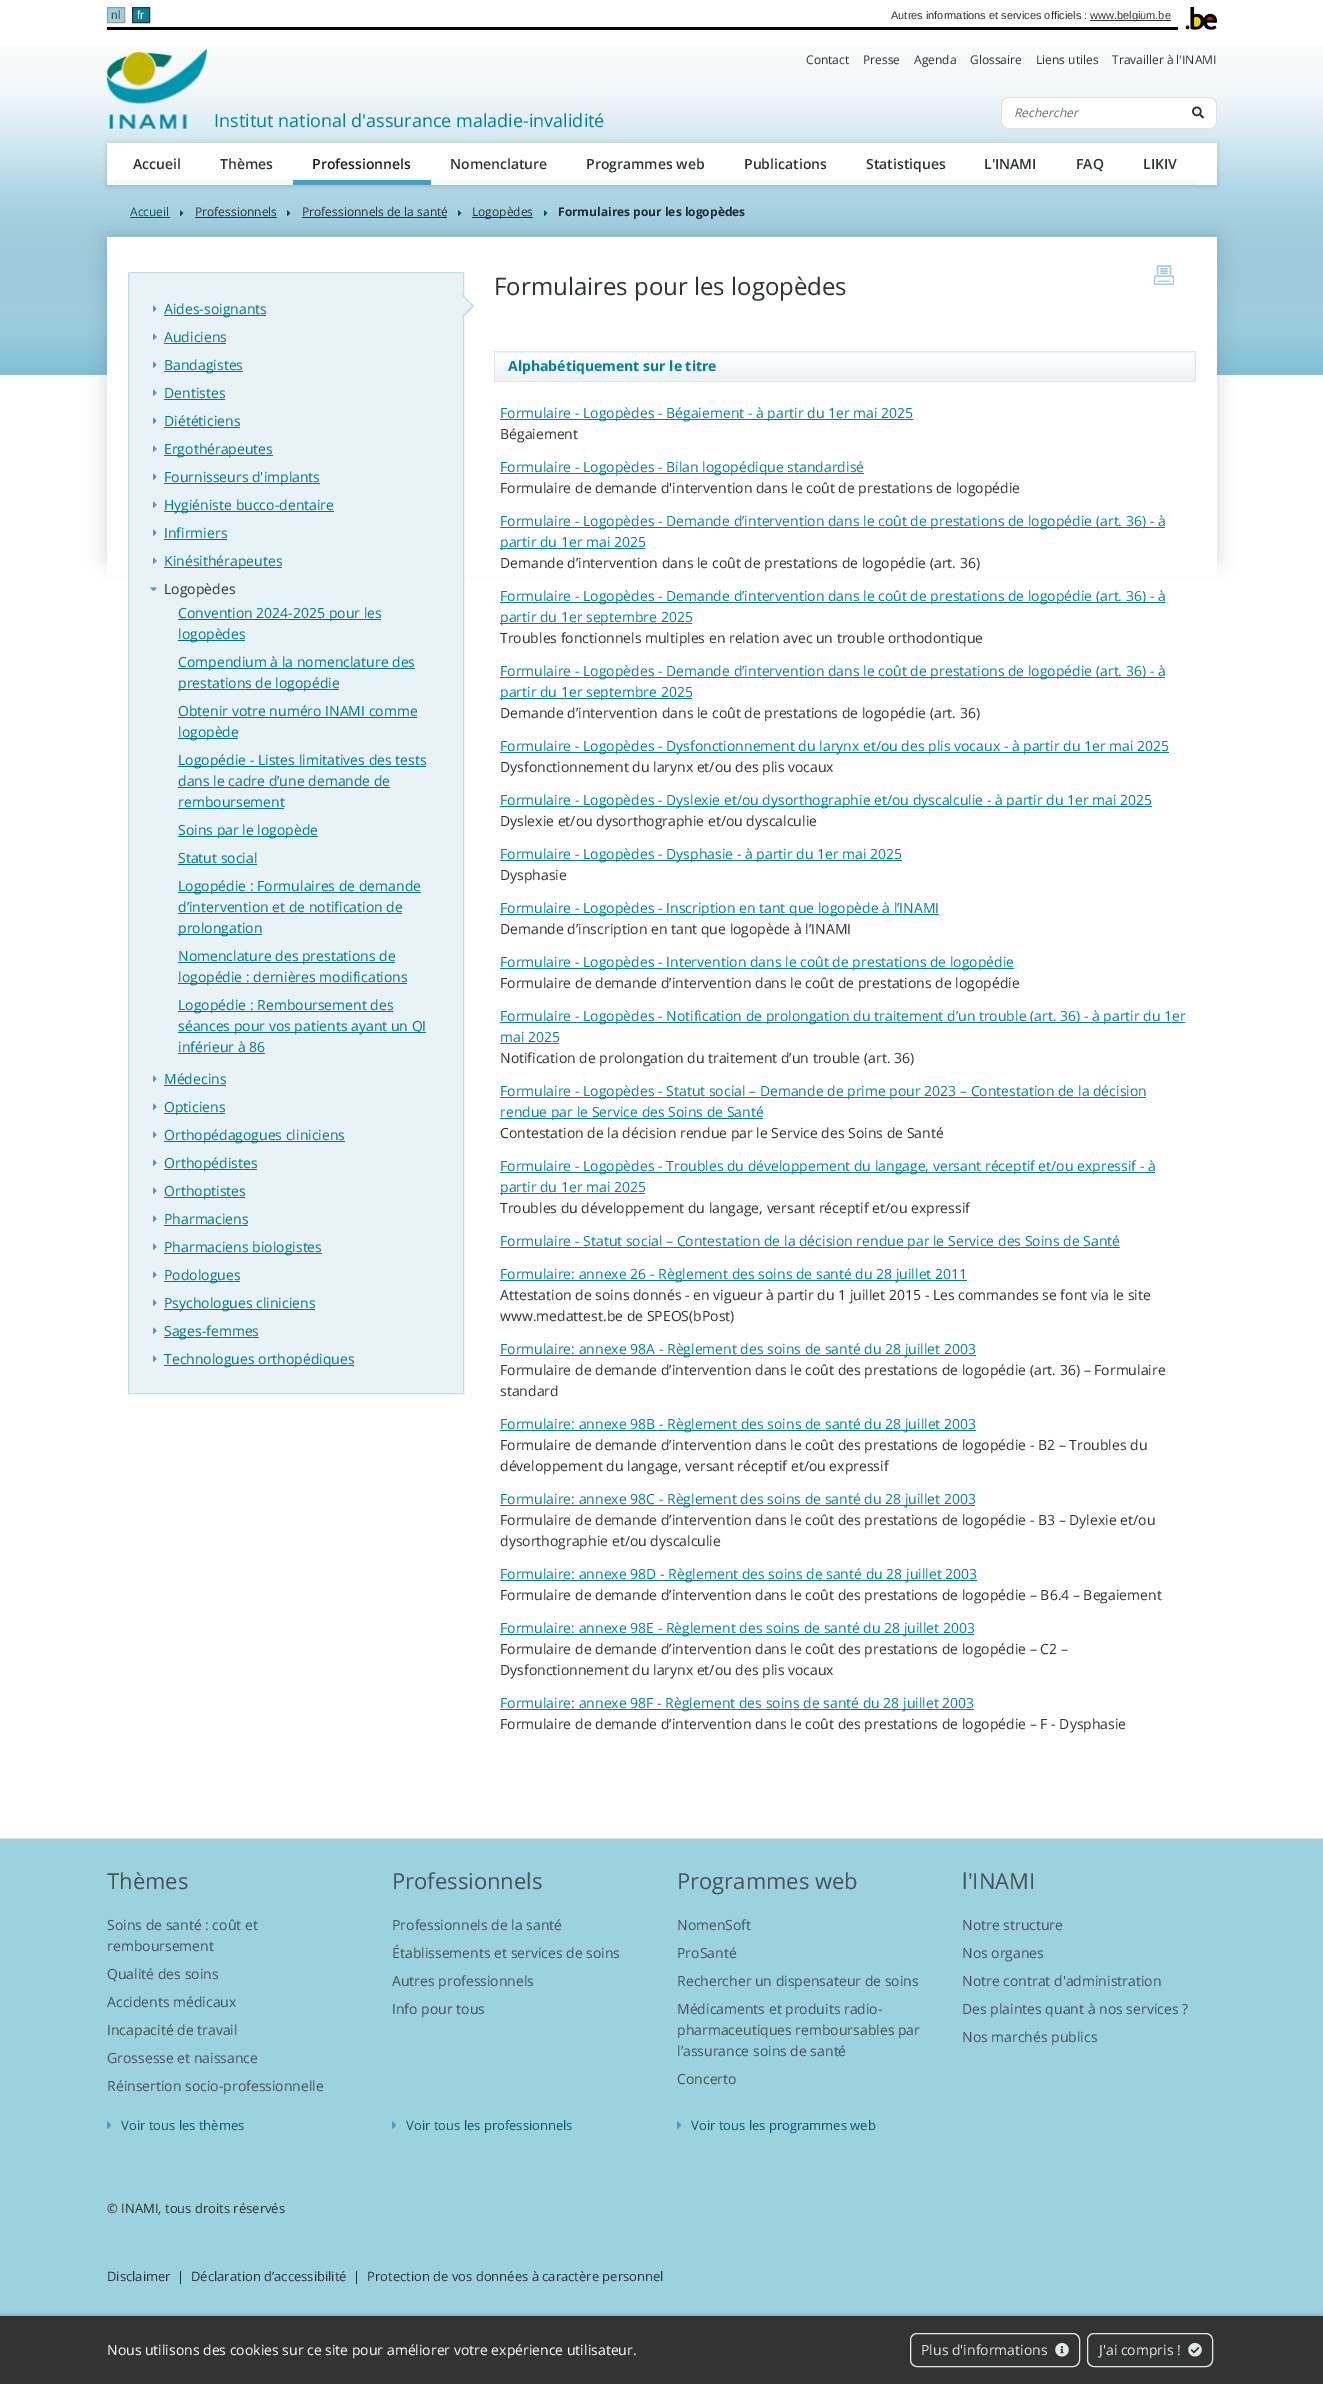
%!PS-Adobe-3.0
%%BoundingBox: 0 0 1323 2384
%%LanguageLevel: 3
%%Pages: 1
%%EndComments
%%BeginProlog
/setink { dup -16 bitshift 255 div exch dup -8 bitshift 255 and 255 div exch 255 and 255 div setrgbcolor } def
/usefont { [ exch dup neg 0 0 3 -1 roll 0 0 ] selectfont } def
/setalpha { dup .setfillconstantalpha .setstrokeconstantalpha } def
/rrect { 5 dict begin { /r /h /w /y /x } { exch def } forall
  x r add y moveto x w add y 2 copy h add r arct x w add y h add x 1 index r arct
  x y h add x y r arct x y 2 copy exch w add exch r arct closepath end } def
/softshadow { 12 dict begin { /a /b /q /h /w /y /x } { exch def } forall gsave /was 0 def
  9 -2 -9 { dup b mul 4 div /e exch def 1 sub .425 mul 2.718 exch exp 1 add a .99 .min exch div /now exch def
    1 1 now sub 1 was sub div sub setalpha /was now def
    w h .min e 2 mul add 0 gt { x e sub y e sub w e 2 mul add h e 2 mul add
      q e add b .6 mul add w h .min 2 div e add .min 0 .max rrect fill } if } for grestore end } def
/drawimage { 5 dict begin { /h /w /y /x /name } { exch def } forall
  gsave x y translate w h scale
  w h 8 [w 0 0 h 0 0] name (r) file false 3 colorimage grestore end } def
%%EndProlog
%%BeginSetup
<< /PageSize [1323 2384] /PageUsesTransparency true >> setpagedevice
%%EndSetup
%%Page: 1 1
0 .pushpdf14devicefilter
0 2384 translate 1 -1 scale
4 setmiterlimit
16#FFFFFF setink
0 0 1323 2384 rectfill
(img1.raw) 0 46 1323 329 drawimage
16#000000 setink
107 27 1071 3 rectfill
16#9AD2DD setink
107.5 7.5 moveto 124.5 7.5 lineto 124.5 22.5 lineto 107.5 22.5 lineto closepath gsave fill grestore
16#999999 setink
stroke
/LiberationSans-Regular 12 usefont
16#495057 setink
111 19 moveto (nl) show
16#02819B setink
132.5 7.5 moveto 149.5 7.5 lineto 149.5 22.5 lineto 132.5 22.5 lineto closepath gsave fill grestore
16#333333 setink
stroke
16#FFFFFF setink
137 19 moveto (fr) show
/LiberationSans-Regular 11 usefont
16#2D3235 setink
891 19 moveto (Autres informations et services officiels :) show
16#333333 setink
1090 20 81 1 rectfill
1090 19 moveto (www.belgium.be) show
(img2.raw) 1185 7 32 23 drawimage
/OpenSans-Regular 12 usefont
16#2D3235 setink
[
    [(Contact) 806 64]
    [(Presse) 863 64]
    [(Agenda) 914 64]
    [(Glossaire) 970 64]
    [(Liens utiles) 1036 64]
    [(Travailler à l'INAMI) 1112 64]
] { aload pop moveto show } forall
(img3.raw) 107 49 100 80 drawimage
/OpenSans-Regular 18 usefont
16#02819B setink
214 127 moveto (Institut national d'assurance maladie-invalidité) show
16#FFFFFF setink
1001 97 216 32 7 rrect fill
16#DEE2E6 setink
1008 97 moveto 1181 97 lineto 1181 129 lineto 1008 129 lineto 1004 129 1001 126 1001 122 curveto 1001 104 lineto 1001 100 1004 97 1008 97 curveto closepath 1008 98 moveto 1181 98 lineto 1181 128 lineto 1008 128 lineto 1005 128 1002 125 1002 122 curveto 1002 104 lineto 1002 101 1005 98 1008 98 curveto closepath eofill
/OpenSans-Italic 12 usefont
16#666E72 setink
1014 117 moveto (Rechercher) show
16#DEE2E6 setink
1180 97 moveto 1210 97 lineto 1214 97 1217 100 1217 104 curveto 1217 122 lineto 1217 126 1214 129 1210 129 curveto 1180 129 lineto closepath 1180 98 moveto 1210 98 lineto 1213.5 98 1216 100.5 1216 104 curveto 1216 122 lineto 1216 125.5 1213.5 128 1210 128 curveto 1180 128 lineto closepath eofill
(img4.raw) 1192 106 12 13 drawimage
16#000000 setink
107 144 1110 42 0 2.5 0.15 softshadow
16#FFFFFF setink
107 143 1110 42 rectfill
16#F3F9F9 setink
114 180 179 5 rectfill
/OpenSans-SemiBold 14 usefont
16#2D3235 setink
133 169 moveto (Accueil) show
220 169 moveto (Thèmes) show
16#45A1C3 setink
293 180 138 5 rectfill
16#1A1A1A setink
312 169 moveto (Professionnels) show
16#F3F9F9 setink
431 180 765 5 rectfill
16#2D3235 setink
[
    [(Nomenclature) 450 169]
    [(Programmes web) 586 169]
    [(Publications) 744 169]
    [(Statistiques) 866 169]
    [(L'INAMI) 984 169]
    [(FAQ) 1076 169]
    [(LIKIV) 1143 169]
] { aload pop moveto show } forall
16#000000 setink
107 237 1110 324 0 10 0.15 softshadow
/OpenSans-Regular 12 usefont
16#0D515B setink
130 216 moveto (Accueil) show
130 217 40 1 rectfill
(img5.raw) 180 210 4 7 drawimage
16#2D3235 setink
195 216 moveto (Professionnels) show
195 217 82 1 rectfill
(img5.raw) 287 210 4 7 drawimage
302 216 moveto (Professionnels de la santé) show
302 217 145 1 rectfill
(img5.raw) 458 210 4 7 drawimage
472 217 61 1 rectfill
472 216 moveto (Logopèdes) show
(img5.raw) 544 210 4 7 drawimage
/OpenSans-Bold 12 usefont
16#1F2930 setink
558 216 moveto (Formulaires pour les logopèdes) show
16#FFFFFF setink
107 237 1110 339 rectfill
(img6.raw) 1154 265 20 20 drawimage
16#E7F3F5 setink
128.5 272.5 moveto 463.5 272.5 lineto 463.5 1393.5 lineto 128.5 1393.5 lineto closepath gsave fill grestore
16#C1DDE2 setink
stroke
(img7.raw) 153 305 4 7 drawimage
16#02778E setink
164 315 102 1 rectfill
/OpenSans-Regular 14 usefont
164 314 moveto (Aides-soignants) show
(img7.raw) 153 333 4 7 drawimage
164 342 moveto (Audiciens) show
164 343 62 1 rectfill
(img7.raw) 153 361 4 7 drawimage
164 371 79 1 rectfill
164 370 moveto (Bandagistes) show
(img7.raw) 153 389 4 7 drawimage
164 398 moveto (Dentistes) show
164 399 61 1 rectfill
(img7.raw) 153 417 4 7 drawimage
164 426 moveto (Diététiciens) show
164 427 76 1 rectfill
(img7.raw) 153 445 4 7 drawimage
164 455 109 1 rectfill
164 454 moveto (Ergothérapeutes) show
(img7.raw) 153 473 4 7 drawimage
164 483 156 1 rectfill
164 482 moveto (Fournisseurs d'implants) show
(img7.raw) 153 501 4 7 drawimage
164 511 170 1 rectfill
164 510 moveto (Hygiéniste bucco-dentaire) show
(img7.raw) 153 529 4 7 drawimage
164 538 moveto (Infirmiers) show
164 539 63 1 rectfill
(img7.raw) 153 557 4 7 drawimage
164 567 118 1 rectfill
164 566 moveto (Kinésithérapeutes) show
(img8.raw) 150 587 7 4 drawimage
16#2D3235 setink
164 594 moveto (Logopèdes) show
16#02778E setink
178 619 203 1 rectfill
178 618 moveto (Convention 2024-2025 pour les) show
178 640 67 1 rectfill
178 639 moveto (logopèdes) show
178 668 237 1 rectfill
178 667 moveto (Compendium à la nomenclature des) show
178 689 161 1 rectfill
178 688 moveto (prestations de logopédie) show
178 716 moveto (Obtenir votre numéro INAMI comme) show
178 717 239 1 rectfill
178 738 60 1 rectfill
178 737 moveto (logopède) show
178 766 248 1 rectfill
178 765 moveto (Logopédie - Listes limitatives des tests) show
178 786 moveto (dans le cadre d’une demande de) show
178 787 212 1 rectfill
178 807 moveto (remboursement) show
178 808 106 1 rectfill
178 836 140 1 rectfill
178 835 moveto (Soins par le logopède) show
178 863 moveto (Statut social) show
178 864 79 1 rectfill
178 892 243 1 rectfill
178 891 moveto (Logopédie : Formulaires de demande) show
178 912 moveto (d’intervention et de notification de) show
178 913 224 1 rectfill
178 934 84 1 rectfill
178 933 moveto (prolongation) show
178 962 217 1 rectfill
178 961 moveto (Nomenclature des prestations de) show
178 983 229 1 rectfill
178 982 moveto (logopédie : dernières modifications) show
178 1011 215 1 rectfill
178 1010 moveto (Logopédie : Remboursement des) show
178 1032 248 1 rectfill
178 1031 moveto (séances pour vos patients ayant un QI) show
178 1052 moveto (inférieur à 86) show
178 1053 87 1 rectfill
(img7.raw) 153 1075 4 7 drawimage
164 1084 moveto (Médecins) show
164 1085 62 1 rectfill
(img7.raw) 153 1103 4 7 drawimage
164 1113 61 1 rectfill
164 1112 moveto (Opticiens) show
(img7.raw) 153 1131 4 7 drawimage
164 1141 181 1 rectfill
164 1140 moveto (Orthopédagogues cliniciens) show
(img7.raw) 153 1159 4 7 drawimage
164 1169 93 1 rectfill
164 1168 moveto (Orthopédistes) show
(img7.raw) 153 1187 4 7 drawimage
164 1197 81 1 rectfill
164 1196 moveto (Orthoptistes) show
(img7.raw) 153 1215 4 7 drawimage
164 1224 moveto (Pharmaciens) show
164 1225 84 1 rectfill
(img7.raw) 153 1243 4 7 drawimage
164 1253 158 1 rectfill
164 1252 moveto (Pharmaciens biologistes) show
(img7.raw) 153 1271 4 7 drawimage
164 1281 76 1 rectfill
164 1280 moveto (Podologues) show
(img7.raw) 153 1299 4 7 drawimage
164 1309 151 1 rectfill
164 1308 moveto (Psychologues cliniciens) show
(img7.raw) 153 1327 4 7 drawimage
164 1337 95 1 rectfill
164 1336 moveto (Sages-femmes) show
(img7.raw) 153 1355 4 7 drawimage
164 1365 190 1 rectfill
164 1364 moveto (Technologues orthopédiques) show
16#E7F3F5 setink
462.5 294.5 moveto 474 306 lineto 462.5 317.5 lineto 451 306 lineto closepath fill
16#C1DDE2 setink
462.5 294.5 moveto 474 306 lineto 473 306.5 lineto 462 295.5 lineto closepath fill
473 305 moveto 474 306 lineto 462.5 317.5 lineto 462 316.5 lineto closepath fill
/OpenSans-Regular 24 usefont
16#2D3235 setink
494 295 moveto (Formulaires pour les logopèdes) show
16#EEF3F5 setink
495 352 700 29 rectfill
gsave 495 353 moveto 1194 353 lineto 1194 376 lineto 495 376 lineto closepath clip newpath
<< /ShadingType 2 /ColorSpace /DeviceRGB /Coords [845 353 845 381] /Extend [true true] /Function << /FunctionType 2 /Domain [0 1] /C0 [0.992 0.996 1] /C1 [0.933 0.953 0.961] /N 1 >> >> shfill grestore
[
    [494 351 702 1 16#E0E8EA]
    [1195 351 1 31 16#E0E8EA]
    [494 381 702 1 16#E0E8EA]
    [494 351 1 31 16#E0E8EA]
] { aload pop setink rectfill } forall
/OpenSans-Bold 14 usefont
16#02819B setink
508 371 moveto (Alphabétiquement sur le titre) show
500 419 413 1 rectfill
/OpenSans-Regular 14 usefont
500 418 moveto (Formulaire - Logopèdes - Bégaiement - à partir du 1er mai 2025) show
16#2D3235 setink
500 439 moveto (Bégaiement) show
16#02819B setink
500 473 364 1 rectfill
500 472 moveto (Formulaire - Logopèdes - Bilan logopédique standardisé) show
16#2D3235 setink
500 493 moveto (Formulaire de demande d'intervention dans le coût de prestations de logopédie) show
16#02819B setink
500 527 665 1 rectfill
500 526 moveto (Formulaire - Logopèdes - Demande d’intervention dans le coût de prestations de logopédie \(art. 36\) - à) show
500 548 145 1 rectfill
500 547 moveto (partir du 1er mai 2025) show
16#2D3235 setink
500 568 moveto (Demande d’intervention dans le coût de prestations de logopédie \(art. 36\)) show
16#02819B setink
500 602 665 1 rectfill
500 601 moveto (Formulaire - Logopèdes - Demande d’intervention dans le coût de prestations de logopédie \(art. 36\) - à) show
500 623 192 1 rectfill
500 622 moveto (partir du 1er septembre 2025) show
16#2D3235 setink
500 643 moveto (Troubles fonctionnels multiples en relation avec un trouble orthodontique) show
16#02819B setink
500 677 665 1 rectfill
500 676 moveto (Formulaire - Logopèdes - Demande d’intervention dans le coût de prestations de logopédie \(art. 36\) - à) show
500 698 192 1 rectfill
500 697 moveto (partir du 1er septembre 2025) show
16#2D3235 setink
500 718 moveto (Demande d’intervention dans le coût de prestations de logopédie \(art. 36\)) show
16#02819B setink
500 752 669 1 rectfill
500 751 moveto (Formulaire - Logopèdes - Dysfonctionnement du larynx et/ou des plis vocaux - à partir du 1er mai 2025) show
16#2D3235 setink
500 772 moveto (Dysfonctionnement du larynx et/ou des plis vocaux) show
16#02819B setink
500 806 652 1 rectfill
500 805 moveto (Formulaire - Logopèdes - Dyslexie et/ou dysorthographie et/ou dyscalculie - à partir du 1er mai 2025) show
16#2D3235 setink
500 826 moveto (Dyslexie et/ou dysorthographie et/ou dyscalculie) show
16#02819B setink
500 860 402 1 rectfill
500 859 moveto (Formulaire - Logopèdes - Dysphasie - à partir du 1er mai 2025) show
16#2D3235 setink
500 880 moveto (Dysphasie) show
16#02819B setink
500 914 439 1 rectfill
500 913 moveto (Formulaire - Logopèdes - Inscription en tant que logopède à l’INAMI) show
16#2D3235 setink
500 934 moveto (Demande d’inscription en tant que logopède à l’INAMI) show
16#02819B setink
500 968 514 1 rectfill
500 967 moveto (Formulaire - Logopèdes - Intervention dans le coût de prestations de logopédie) show
16#2D3235 setink
500 988 moveto (Formulaire de demande d’intervention dans le coût de prestations de logopédie) show
16#02819B setink
500 1022 685 1 rectfill
500 1021 moveto (Formulaire - Logopèdes - Notification de prolongation du traitement d’un trouble \(art. 36\) - à partir du 1er) show
500 1042 moveto (mai 2025) show
500 1043 59 1 rectfill
16#2D3235 setink
500 1063 moveto (Notification de prolongation du traitement d’un trouble \(art. 36\)) show
16#02819B setink
500 1097 646 1 rectfill
500 1096 moveto (Formulaire - Logopèdes - Statut social – Demande de prime pour 2023 – Contestation de la décision) show
500 1118 263 1 rectfill
500 1117 moveto (rendue par le Service des Soins de Santé) show
16#2D3235 setink
500 1138 moveto (Contestation de la décision rendue par le Service des Soins de Santé) show
16#02819B setink
500 1172 655 1 rectfill
500 1171 moveto (Formulaire - Logopèdes - Troubles du développement du langage, versant réceptif et/ou expressif - à) show
500 1193 145 1 rectfill
500 1192 moveto (partir du 1er mai 2025) show
16#2D3235 setink
500 1213 moveto (Troubles du développement du langage, versant réceptif et/ou expressif) show
16#02819B setink
500 1247 620 1 rectfill
500 1246 moveto (Formulaire - Statut social – Contestation de la décision rendue par le Service des Soins de Santé) show
500 1280 467 1 rectfill
500 1279 moveto (Formulaire: annexe 26 - Règlement des soins de santé du 28 juillet 2011) show
16#2D3235 setink
500 1300 moveto (Attestation de soins donnés - en vigueur à partir du 1 juillet 2015 - Les commandes se font via le site) show
500 1321 moveto (www.medattest.be de SPEOS\(bPost\)) show
16#02819B setink
500 1355 476 1 rectfill
500 1354 moveto (Formulaire: annexe 98A - Règlement des soins de santé du 28 juillet 2003) show
16#2D3235 setink
500 1375 moveto (Formulaire de demande d’intervention dans le coût des prestations de logopédie \(art. 36\) – Formulaire) show
500 1396 moveto (standard) show
16#02819B setink
500 1430 476 1 rectfill
500 1429 moveto (Formulaire: annexe 98B - Règlement des soins de santé du 28 juillet 2003) show
16#2D3235 setink
500 1450 moveto (Formulaire de demande d’intervention dans le coût des prestations de logopédie - B2 – Troubles du) show
500 1471 moveto (développement du langage, versant réceptif et/ou expressif) show
16#02819B setink
500 1505 475 1 rectfill
500 1504 moveto (Formulaire: annexe 98C - Règlement des soins de santé du 28 juillet 2003) show
16#2D3235 setink
500 1525 moveto (Formulaire de demande d’intervention dans le coût des prestations de logopédie - B3 – Dylexie et/ou) show
500 1546 moveto (dysorthographie et/ou dyscalculie) show
16#02819B setink
500 1580 477 1 rectfill
500 1579 moveto (Formulaire: annexe 98D - Règlement des soins de santé du 28 juillet 2003) show
16#2D3235 setink
500 1600 moveto (Formulaire de demande d’intervention dans le coût des prestations de logopédie – B6.4 – Begaiement) show
16#02819B setink
500 1634 474 1 rectfill
500 1633 moveto (Formulaire: annexe 98E - Règlement des soins de santé du 28 juillet 2003) show
16#2D3235 setink
500 1654 moveto (Formulaire de demande d’intervention dans le coût des prestations de logopédie – C2 –) show
500 1675 moveto (Dysfonctionnement du larynx et/ou des plis vocaux) show
16#02819B setink
500 1709 474 1 rectfill
500 1708 moveto (Formulaire: annexe 98F - Règlement des soins de santé du 28 juillet 2003) show
16#2D3235 setink
500 1729 moveto (Formulaire de demande d’intervention dans le coût des prestations de logopédie – F - Dysphasie) show
16#9AD2DD setink
0 1839 1323 477 rectfill
16#DEE2E6 setink
0 1838 1323 1 rectfill
/OpenSans-Regular 22 usefont
16#495057 setink
107 1889 moveto (Thèmes) show
/OpenSans-Regular 14 usefont
[
    [(Soins de santé : coût et) 107 1930]
    [(remboursement) 107 1951]
    [(Qualité des soins) 107 1979]
    [(Accidents médicaux) 107 2007]
    [(Incapacité de travail) 107 2035]
    [(Grossesse et naissance) 107 2063]
    [(Réinsertion socio-professionnelle) 107 2091]
] { aload pop moveto show } forall
(img9.raw) 107 2121 5 8 drawimage
/OpenSans-Regular 13 usefont
16#015B6E setink
121 2130 moveto (Voir tous les thèmes) show
/OpenSans-Regular 22 usefont
16#495057 setink
392 1889 moveto (Professionnels) show
/OpenSans-Regular 14 usefont
[
    [(Professionnels de la santé) 392 1930]
    [(Établissements et services de soins) 392 1958]
    [(Autres professionnels) 392 1986]
    [(Info pour tous) 392 2014]
] { aload pop moveto show } forall
(img9.raw) 392 2121 5 8 drawimage
/OpenSans-Regular 13 usefont
16#015B6E setink
406 2130 moveto (Voir tous les professionnels) show
/OpenSans-Regular 22 usefont
16#495057 setink
677 1889 moveto (Programmes web) show
/OpenSans-Regular 14 usefont
[
    [(NomenSoft) 677 1930]
    [(ProSanté) 677 1958]
    [(Rechercher un dispensateur de soins) 677 1986]
    [(Médicaments et produits radio-) 677 2014]
    [(pharmaceutiques remboursables par) 677 2035]
    [(l’assurance soins de santé) 677 2056]
    [(Concerto) 677 2084]
] { aload pop moveto show } forall
(img9.raw) 677 2121 5 8 drawimage
/OpenSans-Regular 13 usefont
16#015B6E setink
691 2130 moveto (Voir tous les programmes web) show
/OpenSans-Regular 22 usefont
16#495057 setink
962 1889 moveto (l'INAMI) show
/OpenSans-Regular 14 usefont
[
    [(Notre structure) 962 1930]
    [(Nos organes) 962 1958]
    [(Notre contrat d'administration) 962 1986]
    [(Des plaintes quant à nos services ?) 962 2014]
    [(Nos marchés publics) 962 2042]
] { aload pop moveto show } forall
/OpenSans-Regular 13 usefont
16#2D3235 setink
[
    [(© INAMI, tous droits réservés) 107 2213]
    [(Disclaimer) 107 2281]
    [(|) 177 2281]
    [(Déclaration d’accessibilité) 191 2281]
    [(|) 353 2281]
    [(Protection de vos données à caractère personnel) 367 2281]
] { aload pop moveto show } forall
16#000000 setink
0 2316 1323 68 0 2.5 0.25 softshadow
16#333333 setink
0 2316 1323 68 rectfill
/OpenSans-Regular 14 usefont
16#FFFFFF setink
107 2355 moveto (Nous utilisons des cookies sur ce site pour améliorer votre expérience utilisateur.) show
16#E0E8EA setink
910.5 2333.5 169 33 6.5 rrect stroke
921 2355 moveto (Plus d'informations) show
(img10.raw) 1055 2343 14 14 drawimage
1087.5 2333.5 125 33 6.5 rrect stroke
1099 2355 moveto (J'ai compris !) show
(img11.raw) 1188 2343 14 14 drawimage
.poppdf14devicefilter showpage
%%EOF
